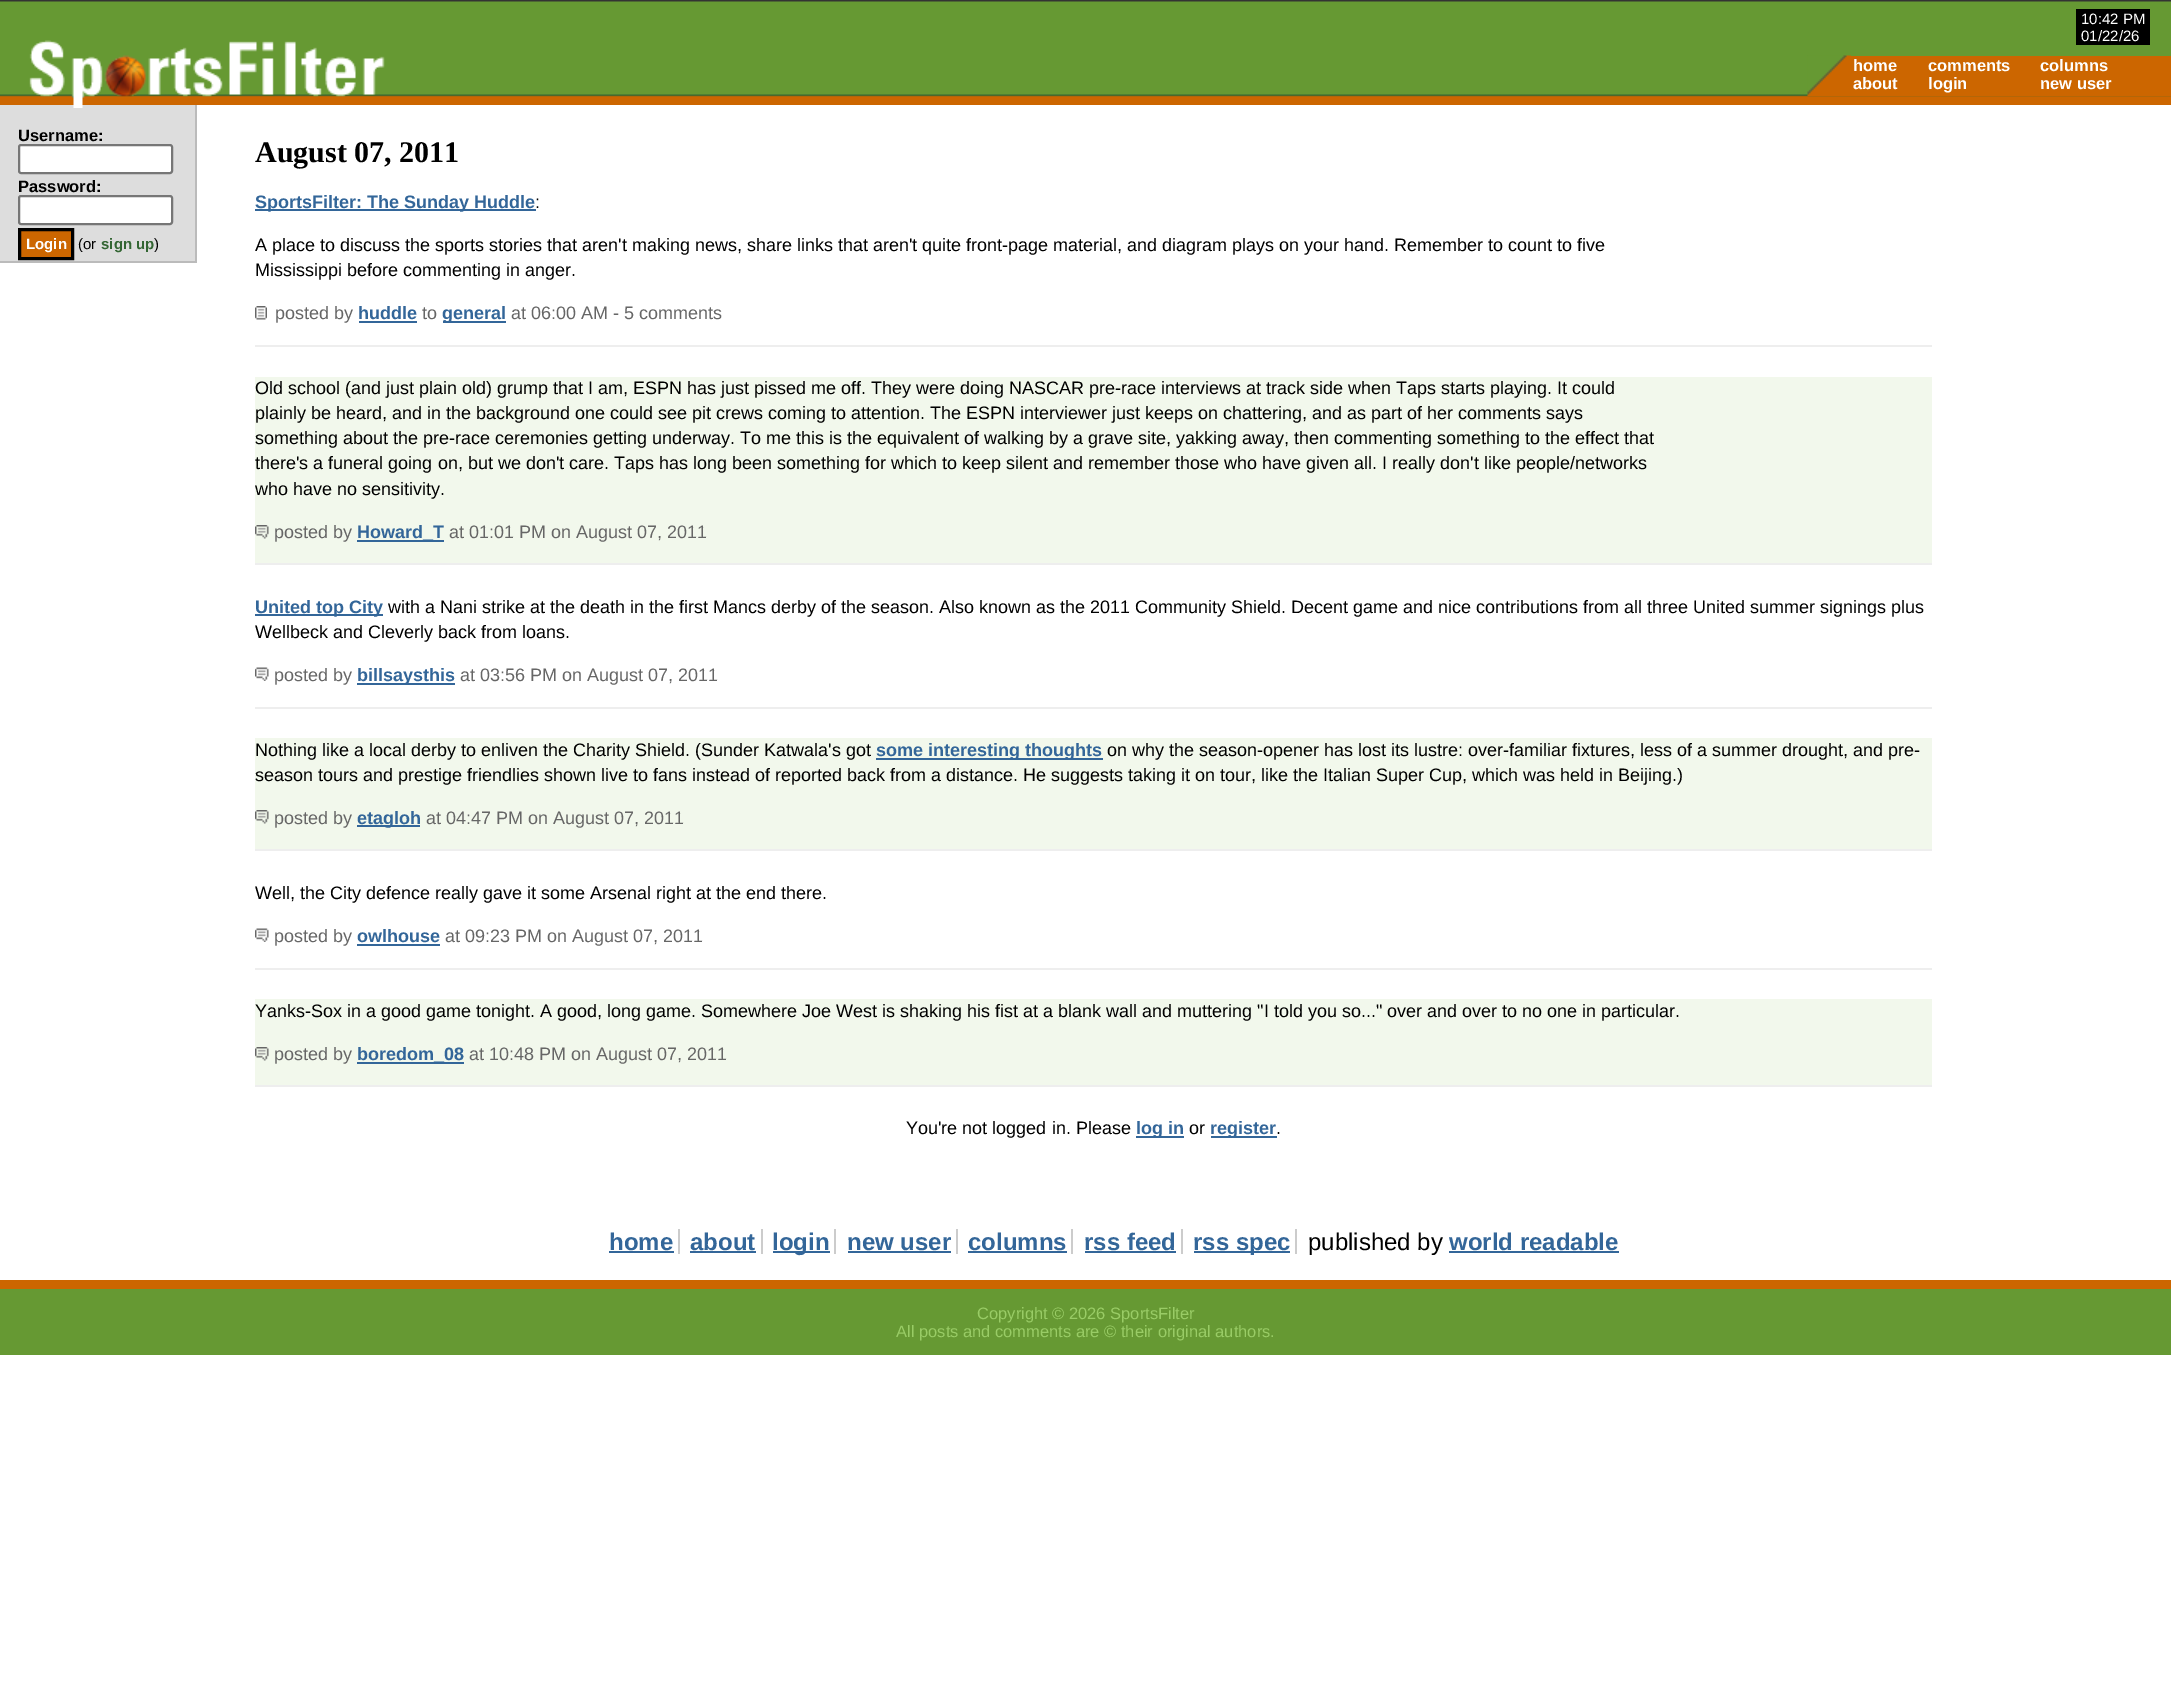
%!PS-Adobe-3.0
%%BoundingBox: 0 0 2171 1682
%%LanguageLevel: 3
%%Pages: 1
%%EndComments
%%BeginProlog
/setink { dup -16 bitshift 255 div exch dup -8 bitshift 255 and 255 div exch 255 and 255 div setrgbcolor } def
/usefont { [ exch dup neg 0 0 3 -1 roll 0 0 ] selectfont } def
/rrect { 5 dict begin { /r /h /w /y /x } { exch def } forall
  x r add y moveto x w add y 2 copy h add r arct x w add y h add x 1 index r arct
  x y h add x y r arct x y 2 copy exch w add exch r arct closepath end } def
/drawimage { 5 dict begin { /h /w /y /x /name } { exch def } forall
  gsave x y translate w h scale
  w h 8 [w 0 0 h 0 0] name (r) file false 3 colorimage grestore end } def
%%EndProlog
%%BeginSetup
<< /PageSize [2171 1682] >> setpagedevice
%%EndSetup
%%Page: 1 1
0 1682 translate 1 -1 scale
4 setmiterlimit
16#FFFFFF setink
0 0 2171 1682 rectfill
(img1.raw) 0 0 2171 105 drawimage
16#000000 setink
2076 9 74 36 rectfill
/LiberationSans-Regular 15 usefont
16#FFFFFF setink
2081 24 moveto (10:42 PM) show
2081 41 moveto (01/22/26) show
16#DDDDDD setink
0 105 195 156 rectfill
16#BBBBBB setink
195 105 2 158 rectfill
(img2.raw) 29 40 356 68 drawimage
16#CC6600 setink
1851 56 320 40 rectfill
(img3.raw) 1807 55 44 41 drawimage
/LiberationSans-Bold 16.5 usefont
16#FFFFFF setink
[
    [(home) 1853 71]
    [(comments) 1928 71]
    [(columns) 2040 71]
    [(about) 1853 89]
    [(login) 1928 89]
    [(new user) 2040 89]
] { aload pop moveto show } forall
16#BBBBBB setink
0 261 197 2 rectfill
16#000000 setink
18 141 moveto (Username:) show
16#FFFFFF setink
19 145 153 28 2 rrect gsave fill grestore
16#767676 setink
2 setlinewidth
stroke
16#000000 setink
18 192 moveto (Password:) show
16#FFFFFF setink
19 196 153 28 2 rrect gsave fill grestore
16#767676 setink
stroke
16#CC6600 setink
19.5 229.5 moveto 72.5 229.5 lineto 72.5 258.5 lineto 19.5 258.5 lineto closepath gsave fill grestore
16#000000 setink
3 setlinewidth
stroke
/LiberationSans-Bold 15 usefont
16#FFFFFF setink
26 249 moveto (Login) show
/LiberationSans-Regular 15 usefont
16#000000 setink
78 249 moveto (\(or) show
/LiberationSans-Bold 15 usefont
16#336633 setink
101 249 moveto (sign up) show
/LiberationSans-Regular 15 usefont
16#000000 setink
154 249 moveto (\)) show
/LiberationSerif-Bold 30 usefont
255 162 moveto (August 07, 2011) show
16#EEEEEE setink
255 345 1677 2 rectfill
16#336699 setink
255 209 281 2 rectfill
/LiberationSans-Bold 18 usefont
255 208 moveto (SportsFilter: The Sunday Huddle) show
/LiberationSans-Regular 18 usefont
16#000000 setink
[
    [(:) 535 208]
    [(A place to discuss the sports stories that aren't making news, share links that aren't quite front-page material, and diagram plays on your hand. Remember to count to five) 255 251]
    [(Mississippi before commenting in anger.) 255 276]
] { aload pop moveto show } forall
(img4.raw) 255 306 12 14 drawimage
16#666666 setink
275 319 moveto (posted by) show
/LiberationSans-Bold 18 usefont
16#336699 setink
358 319 moveto (huddle) show
359 321 58 2 rectfill
/LiberationSans-Regular 18 usefont
16#666666 setink
422 319 moveto (to) show
16#336699 setink
443 321 63 2 rectfill
/LiberationSans-Bold 18 usefont
442 319 moveto (general) show
/LiberationSans-Regular 18 usefont
16#666666 setink
511 319 moveto (at 06:00 AM - 5 comments) show
16#F2F8EC setink
255 377 1677 186 rectfill
16#EEEEEE setink
255 563 1677 2 rectfill
16#000000 setink
[
    [(Old school \(and just plain old\) grump that I am, ESPN has just pissed me off. They were doing NASCAR pre-race interviews at track side when Taps starts playing. It could) 255 394]
    [(plainly be heard, and in the background one could see pit crews coming to attention. The ESPN interviewer just keeps on chattering, and as part of her comments says) 255 419]
    [(something about the pre-race ceremonies getting underway. To me this is the equivalent of walking by a grave site, yakking away, then commenting something to the effect that) 255 444]
    [(there's a funeral going on, but we don't care. Taps has long been something for which to keep silent and remember those who have given all. I really don't like people/networks) 255 469]
    [(who have no sensitivity.) 255 495]
] { aload pop moveto show } forall
(img5.raw) 255 525 14 14 drawimage
16#666666 setink
274 538 moveto (posted by) show
16#336699 setink
357 540 87 2 rectfill
/LiberationSans-Bold 18 usefont
357 538 moveto (Howard_T) show
/LiberationSans-Regular 18 usefont
16#666666 setink
449 538 moveto (at 01:01 PM on August 07, 2011) show
16#EEEEEE setink
255 707 1677 2 rectfill
16#336699 setink
255 614 128 2 rectfill
/LiberationSans-Bold 18 usefont
255 613 moveto (United top City) show
/LiberationSans-Regular 18 usefont
16#000000 setink
388 613 moveto (with a Nani strike at the death in the first Mancs derby of the season. Also known as the 2011 Community Shield. Decent game and nice contributions from all three United summer signings plus) show
255 638 moveto (Wellbeck and Cleverly back from loans.) show
(img6.raw) 255 667 14 14 drawimage
16#666666 setink
274 681 moveto (posted by) show
16#336699 setink
357 683 98 2 rectfill
/LiberationSans-Bold 18 usefont
357 681 moveto (billsaysthis) show
/LiberationSans-Regular 18 usefont
16#666666 setink
460 681 moveto (at 03:56 PM on August 07, 2011) show
16#F2F8EC setink
255 738 1677 111 rectfill
16#EEEEEE setink
255 849 1677 2 rectfill
16#000000 setink
255 756 moveto (Nothing like a local derby to enliven the Charity Shield. \(Sunder Katwala's got) show
16#336699 setink
876 758 227 2 rectfill
/LiberationSans-Bold 18 usefont
876 756 moveto (some interesting thoughts) show
/LiberationSans-Regular 18 usefont
16#000000 setink
1107 756 moveto (on why the season-opener has lost its lustre: over-familiar fixtures, less of a summer drought, and pre-) show
255 781 moveto (season tours and prestige friendlies shown live to fans instead of reported back from a distance. He suggests taking it on tour, like the Italian Super Cup, which was held in Beijing.\)) show
(img5.raw) 255 810 14 14 drawimage
16#666666 setink
274 824 moveto (posted by) show
16#336699 setink
357 825 63 2 rectfill
/LiberationSans-Bold 18 usefont
357 824 moveto (etagloh) show
/LiberationSans-Regular 18 usefont
16#666666 setink
426 824 moveto (at 04:47 PM on August 07, 2011) show
16#EEEEEE setink
255 968 1677 2 rectfill
16#000000 setink
255 899 moveto (Well, the City defence really gave it some Arsenal right at the end there.) show
(img6.raw) 255 928 14 14 drawimage
16#666666 setink
274 942 moveto (posted by) show
/LiberationSans-Bold 18 usefont
16#336699 setink
357 942 moveto (owlhouse) show
357 944 83 2 rectfill
/LiberationSans-Regular 18 usefont
16#666666 setink
445 942 moveto (at 09:23 PM on August 07, 2011) show
16#F2F8EC setink
255 999 1677 86 rectfill
16#EEEEEE setink
255 1085 1677 2 rectfill
16#000000 setink
255 1017 moveto (Yanks-Sox in a good game tonight. A good, long game. Somewhere Joe West is shaking his fist at a blank wall and muttering "I told you so..." over and over to no one in particular.) show
(img5.raw) 255 1047 14 14 drawimage
16#666666 setink
274 1060 moveto (posted by) show
16#336699 setink
357 1062 107 2 rectfill
/LiberationSans-Bold 18 usefont
357 1060 moveto (boredom_08) show
/LiberationSans-Regular 18 usefont
16#666666 setink
469 1060 moveto (at 10:48 PM on August 07, 2011) show
16#000000 setink
906 1134 moveto (You're not logged in. Please) show
16#336699 setink
1136 1136 48 2 rectfill
/LiberationSans-Bold 18 usefont
1136 1134 moveto (log in) show
/LiberationSans-Regular 18 usefont
16#000000 setink
1189 1134 moveto (or) show
16#336699 setink
1211 1136 66 2 rectfill
/LiberationSans-Bold 18 usefont
1210 1134 moveto (register) show
/LiberationSans-Regular 18 usefont
16#000000 setink
1276 1134 moveto (.) show
/LiberationSans-Bold 24 usefont
16#336699 setink
609 1250 moveto (home) show
16#CCCCCC setink
678 1229 2 25 rectfill
16#336699 setink
609 1251 65 2 rectfill
690 1250 moveto (about) show
[
    [761 1229 2 25 16#CCCCCC]
    [690 1251 66 2 16#336699]
    [773 1251 57 2 16#336699]
] { aload pop setink rectfill } forall
772 1250 moveto (login) show
16#CCCCCC setink
834 1229 2 25 rectfill
16#336699 setink
847 1250 moveto (new user) show
16#CCCCCC setink
956 1229 2 25 rectfill
16#336699 setink
848 1251 103 2 rectfill
968 1250 moveto (columns) show
16#CCCCCC setink
1071 1229 2 25 rectfill
16#336699 setink
968 1251 99 2 rectfill
1084 1250 moveto (rss feed) show
[
    [1181 1229 2 25 16#CCCCCC]
    [1085 1251 91 2 16#336699]
    [1194 1251 96 2 16#336699]
] { aload pop setink rectfill } forall
1193 1250 moveto (rss spec) show
16#CCCCCC setink
1295 1229 2 25 rectfill
/LiberationSans-Regular 24 usefont
16#000000 setink
1308 1250 moveto (published by) show
/LiberationSans-Bold 24 usefont
16#336699 setink
1449 1250 moveto (world readable) show
[
    [1449 1251 170 2 16#336699]
    [0 1289 2171 66 16#669933]
    [0 1280 2171 9 16#CC6600]
] { aload pop setink rectfill } forall
/LiberationSans-Regular 16.5 usefont
16#99CC66 setink
977 1319 moveto (Copyright © 2026 SportsFilter) show
896 1337 moveto (All posts and comments are © their original authors.) show
showpage
%%EOF
